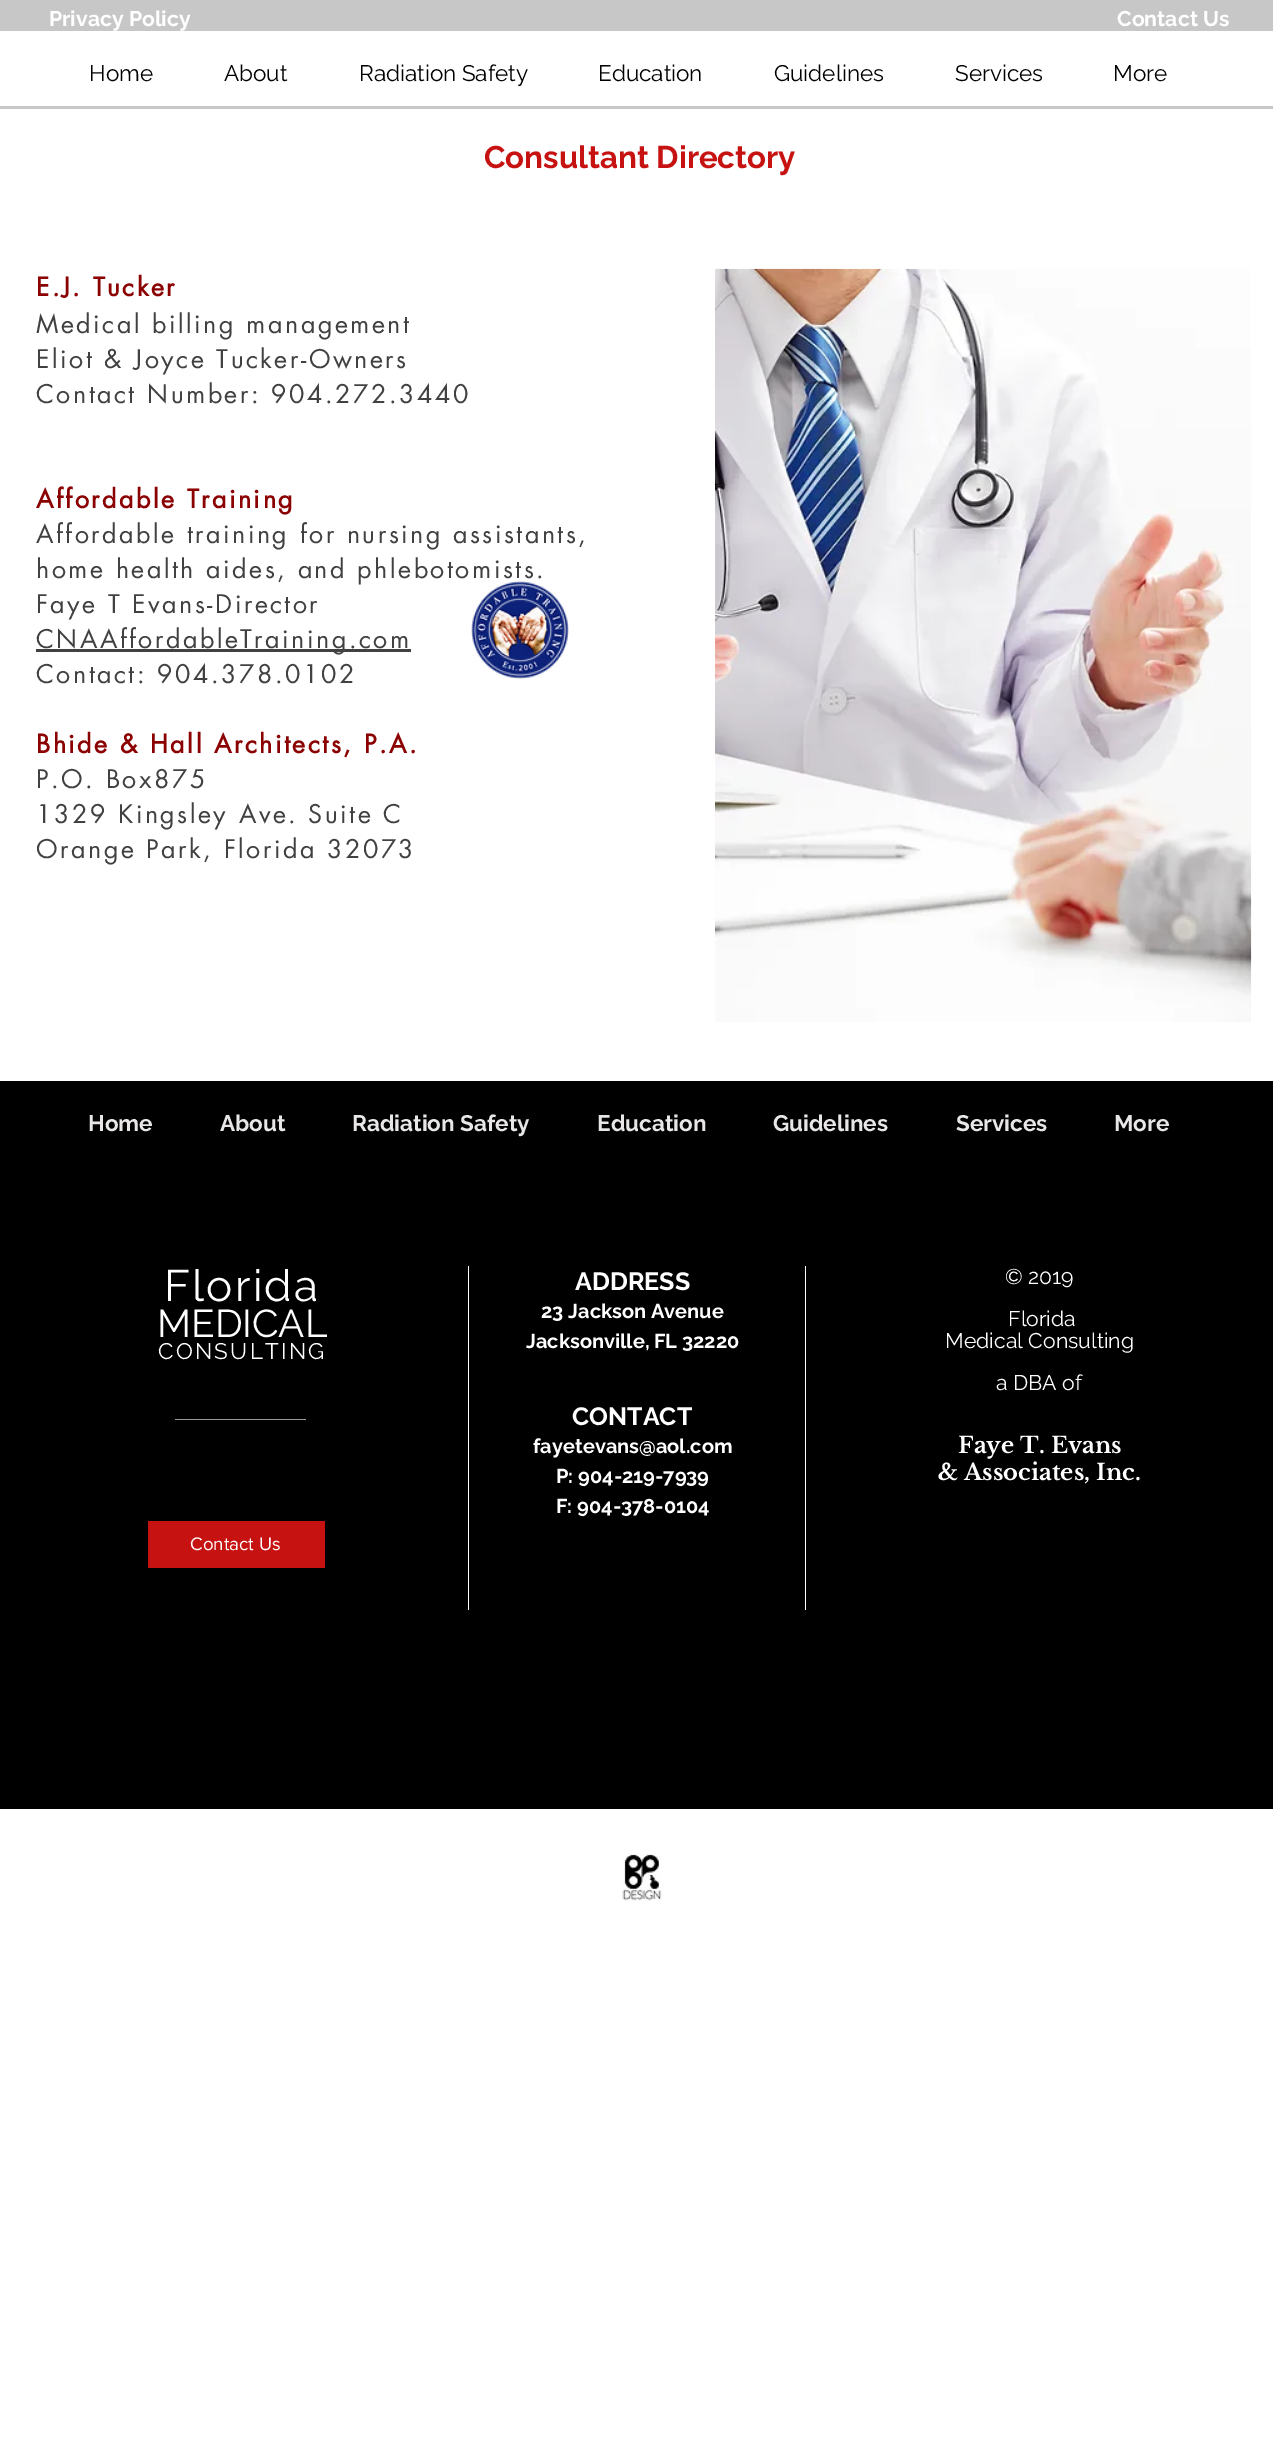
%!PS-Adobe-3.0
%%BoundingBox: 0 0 1273 2444
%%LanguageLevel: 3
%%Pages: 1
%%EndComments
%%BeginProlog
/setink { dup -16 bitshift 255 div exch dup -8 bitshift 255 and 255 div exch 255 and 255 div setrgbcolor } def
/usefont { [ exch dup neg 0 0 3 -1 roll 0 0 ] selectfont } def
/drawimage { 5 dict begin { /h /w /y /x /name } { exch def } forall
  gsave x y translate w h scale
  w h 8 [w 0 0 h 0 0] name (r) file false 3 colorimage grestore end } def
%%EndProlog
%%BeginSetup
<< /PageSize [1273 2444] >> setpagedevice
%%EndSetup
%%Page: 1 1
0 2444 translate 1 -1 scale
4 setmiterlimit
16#FFFFFF setink
0 0 1273 2444 rectfill
16#C7C7C7 setink
0 0 1273 109 rectfill
/Raleway-Bold 21.25 usefont
16#FFFFFF setink
49 26 moveto (Privacy Policy) show
1117 26 moveto (Contact Us) show
0 31 1273 75 rectfill
/Raleway-Regular 22.5 usefont
16#000000 setink
[
    [(Home) 89 81]
    [(About) 224 81]
    [(Radiation Safety) 359 81]
    [(Education) 598 81]
    [(Guidelines) 774 81]
    [(Services) 955 81]
    [(More) 1113 81]
] { aload pop moveto show } forall
/Raleway-Bold 31.25 usefont
16#C71212 setink
484 168 moveto (Consultant Directory) show
/futura-Bold 25 usefont
16#8B0000 setink
36 296 moveto 2.5 0 (E.J. Tucker) ashow
/futura-Regular 25 usefont
16#414141 setink
36 333 moveto 2.5 0 (Medical billing management) ashow
36 368 moveto 2.5 0 (Eliot & Joyce Tucker-Owners) ashow
36 403 moveto 2.5 0 (Contact Number: 904.272.3440) ashow
/futura-Bold 25 usefont
16#8B0000 setink
36 508 moveto 2.5 0 (Affordable Training) ashow
/futura-Regular 25 usefont
16#414141 setink
36 543 moveto 2.5 0 (Affordable training for nursing assistants,) ashow
(img2.raw) 471 581 98 98 drawimage
36 578 moveto 2.5 0 (home health aides, and phlebotomists.) ashow
36 613 moveto 2.5 0 (Faye T Evans-Director) ashow
36 649 375 3 rectfill
36 648 moveto 2.5 0 (CNAAffordableTraining.com) ashow
36 683 moveto 2.5 0 (Contact: 904.378.0102) ashow
/futura-Bold 25 usefont
16#8B0000 setink
36 753 moveto 2.5 0 (Bhide & Hall Architects, P.A.) ashow
/futura-Regular 25 usefont
16#414141 setink
36 788 moveto 2.5 0 (P.O. Box875) ashow
36 823 moveto 2.5 0 (1329 Kingsley Ave. Suite C) ashow
36 858 moveto 2.5 0 (Orange Park, Florida 32073) ashow
(img1.raw) 715 268 537 754 drawimage
16#000000 setink
0 1081 1273 728 rectfill
/Raleway-Bold 22.5 usefont
16#E8E6E6 setink
[
    [(Home) 88 1131]
    [(About) 220 1131]
    [(Radiation Safety) 352 1131]
    [(Education) 597 1131]
    [(Guidelines) 773 1131]
    [(Services) 956 1131]
    [(More) 1114 1131]
] { aload pop moveto show } forall
/Raleway-Regular 44 usefont
16#FFFFFF setink
164 1301 moveto 2.25 0 (Florida) ashow
/Raleway-Regular 38.75 usefont
157 1337 moveto (MEDICAL) show
/Raleway-Regular 22.5 usefont
158 1359 moveto 2.25 0 (CONSULTING) ashow
468 1266 1 344 rectfill
/Raleway-Bold 25 usefont
575 1290 moveto (ADDRESS) show
/Raleway-Bold 20 usefont
541 1318 moveto (23 Jackson Avenue) show
526 1348 moveto (Jacksonville, FL 32220) show
/Raleway-Bold 25 usefont
572 1425 moveto (CONTACT) show
/Raleway-Bold 20 usefont
[
    [(fayetevans@aol.com) 533 1453]
    [(P: 904-219-7939) 556 1483]
    [(F: 904-378-0104) 556 1513]
] { aload pop moveto show } forall
805 1266 1 344 rectfill
/Raleway-Regular 21.25 usefont
[
    [(© 2019) 1005 1284]
    [(Florida) 1008 1326]
    [(Medical Consulting) 945 1348]
    [(a DBA of) 996 1390]
] { aload pop moveto show } forall
/LibreBaskerville-Bold 22.5 usefont
958 1453 moveto (Faye T. Evans) show
938 1480 moveto (& Associates, Inc.) show
16#999997 setink
175 1419 131 1 rectfill
16#C71212 setink
148 1521 177 47 rectfill
/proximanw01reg-Regular 18.75 usefont
16#FFFFFF setink
190 1550 moveto (Contact Us) show
(img3.raw) 622 1854 40 47 drawimage
showpage
%%EOF
